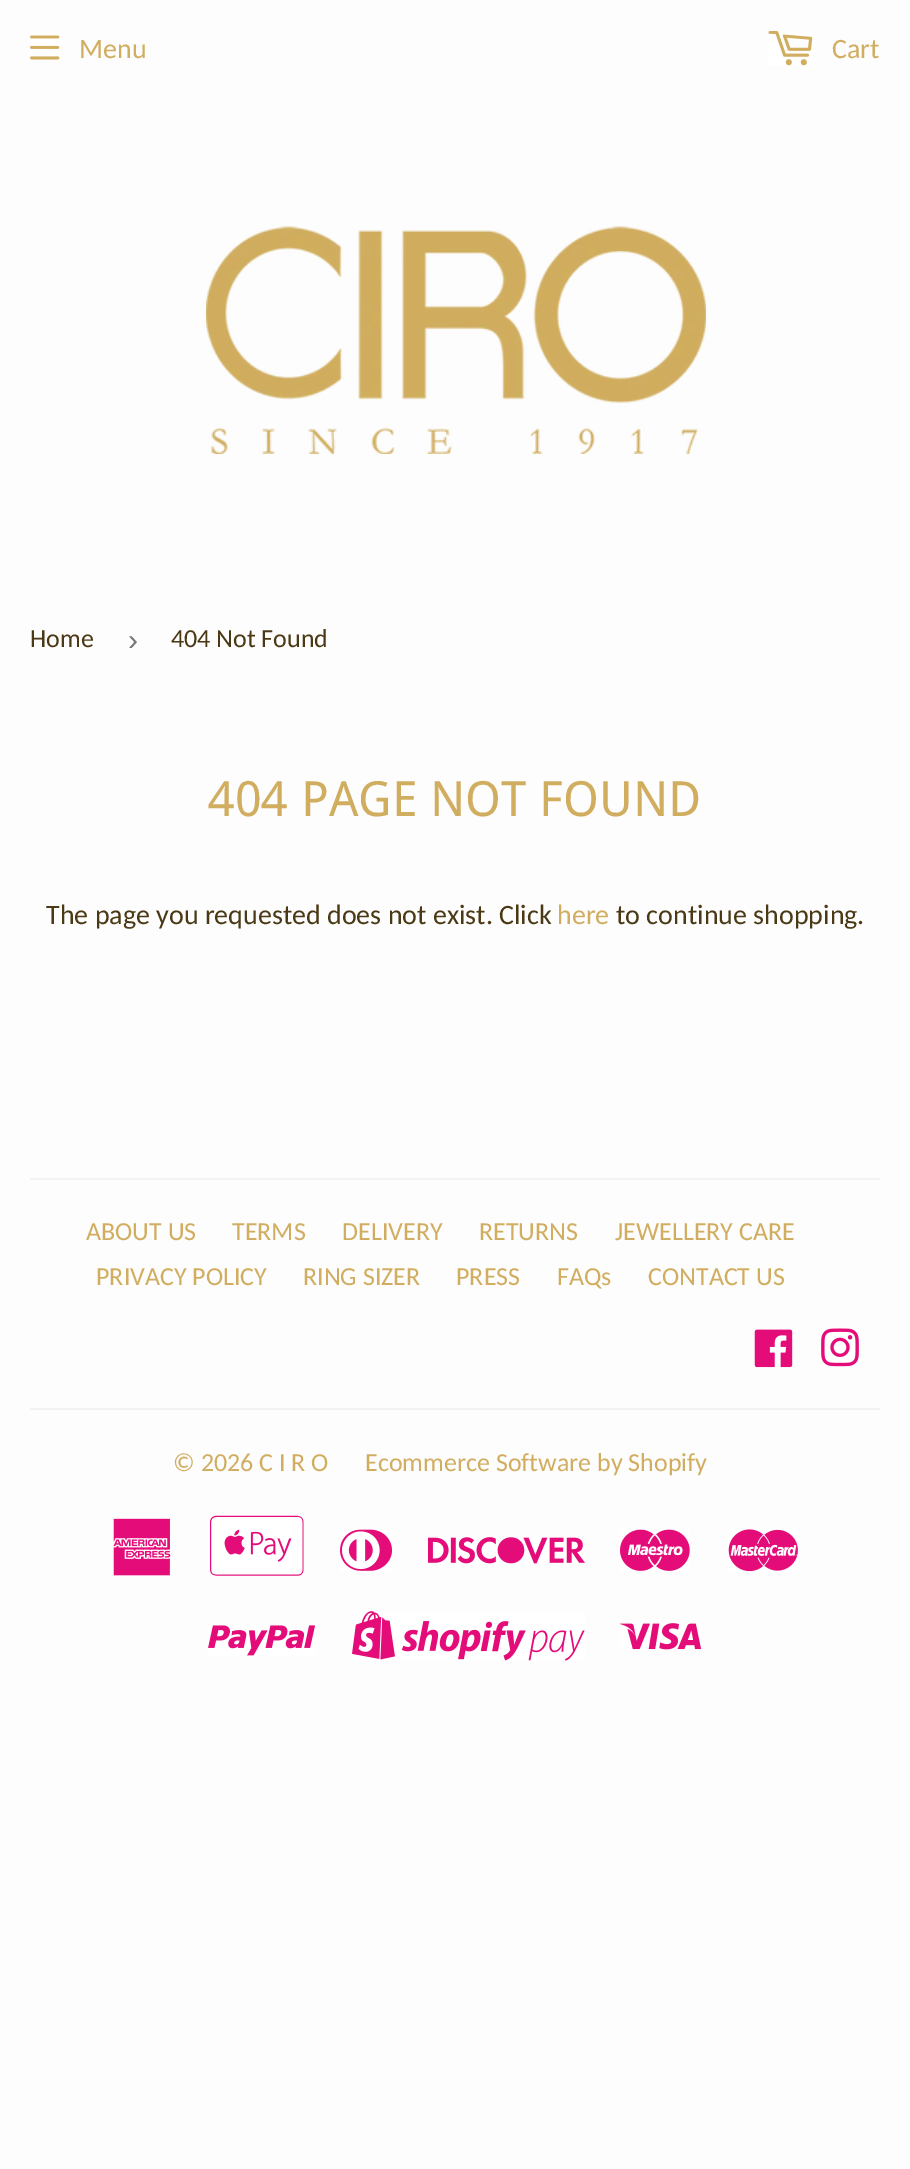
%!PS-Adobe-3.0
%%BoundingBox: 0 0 910 2169
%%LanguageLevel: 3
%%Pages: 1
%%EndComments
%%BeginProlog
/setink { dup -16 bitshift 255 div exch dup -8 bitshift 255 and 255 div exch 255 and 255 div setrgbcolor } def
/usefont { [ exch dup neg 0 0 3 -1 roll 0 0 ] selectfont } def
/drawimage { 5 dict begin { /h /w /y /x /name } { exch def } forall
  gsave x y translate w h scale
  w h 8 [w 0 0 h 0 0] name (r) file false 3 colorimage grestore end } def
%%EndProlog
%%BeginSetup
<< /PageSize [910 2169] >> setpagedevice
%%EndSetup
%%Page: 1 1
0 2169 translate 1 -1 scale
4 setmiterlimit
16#FDFDFD setink
0 0 910 2169 rectfill
(img1.raw) 30 35 30 25 drawimage
/Carlito-Regular 28 usefont
16#D1AD5F setink
79 58 moveto (Menu) show
(img2.raw) 768 31 45 35 drawimage
832 58 moveto (Cart) show
(img3.raw) 206 226 500 228 drawimage
/Carlito-Regular 26 usefont
16#4A3914 setink
30 647 moveto (Home) show
/LiberationSans-Regular 30 usefont
16#767676 setink
128 650 moveto (›) show
/Carlito-Regular 26 usefont
16#4A3914 setink
171 647 moveto (404 Not Found) show
/DroidSans-Regular 48.5 usefont
16#D1AD5F setink
208 816 moveto (404 PAGE NOT FOUND) show
/Carlito-Regular 28 usefont
16#4A3914 setink
46 924 moveto (The page you requested does not exist. Click) show
16#D1AD5F setink
557 924 moveto (here) show
16#4A3914 setink
616 924 moveto (to continue shopping.) show
16#F2F2F2 setink
30 1178 850 2 rectfill
/Carlito-Regular 26 usefont
16#D1AD5F setink
[
    [(ABOUT US) 86 1240]
    [(TERMS) 232 1240]
    [(DELIVERY) 342 1240]
    [(RETURNS) 479 1240]
    [(JEWELLERY CARE) 615 1240]
    [(PRIVACY POLICY) 96 1285]
    [(RING SIZER) 303 1285]
    [(PRESS) 456 1285]
    [(FAQs) 557 1285]
    [(CONTACT US) 648 1285]
] { aload pop moveto show } forall
(img4.raw) 754 1329 39 39 drawimage
(img5.raw) 821 1328 38 39 drawimage
16#F2F2F2 setink
30 1408 850 2 rectfill
16#D1AD5F setink
173 1471 moveto (© 2026 C I R O) show
365 1471 moveto (Ecommerce Software by Shopify) show
(img6.raw) 113 1518 58 58 drawimage
(img7.raw) 210 1515 94 61 drawimage
(img8.raw) 340 1529 52 42 drawimage
(img9.raw) 428 1537 157 27 drawimage
(img10.raw) 620 1529 70 42 drawimage
(img11.raw) 728 1529 70 43 drawimage
(img12.raw) 208 1625 108 31 drawimage
(img13.raw) 352 1611 233 50 drawimage
(img14.raw) 620 1623 82 27 drawimage
showpage
%%EOF
